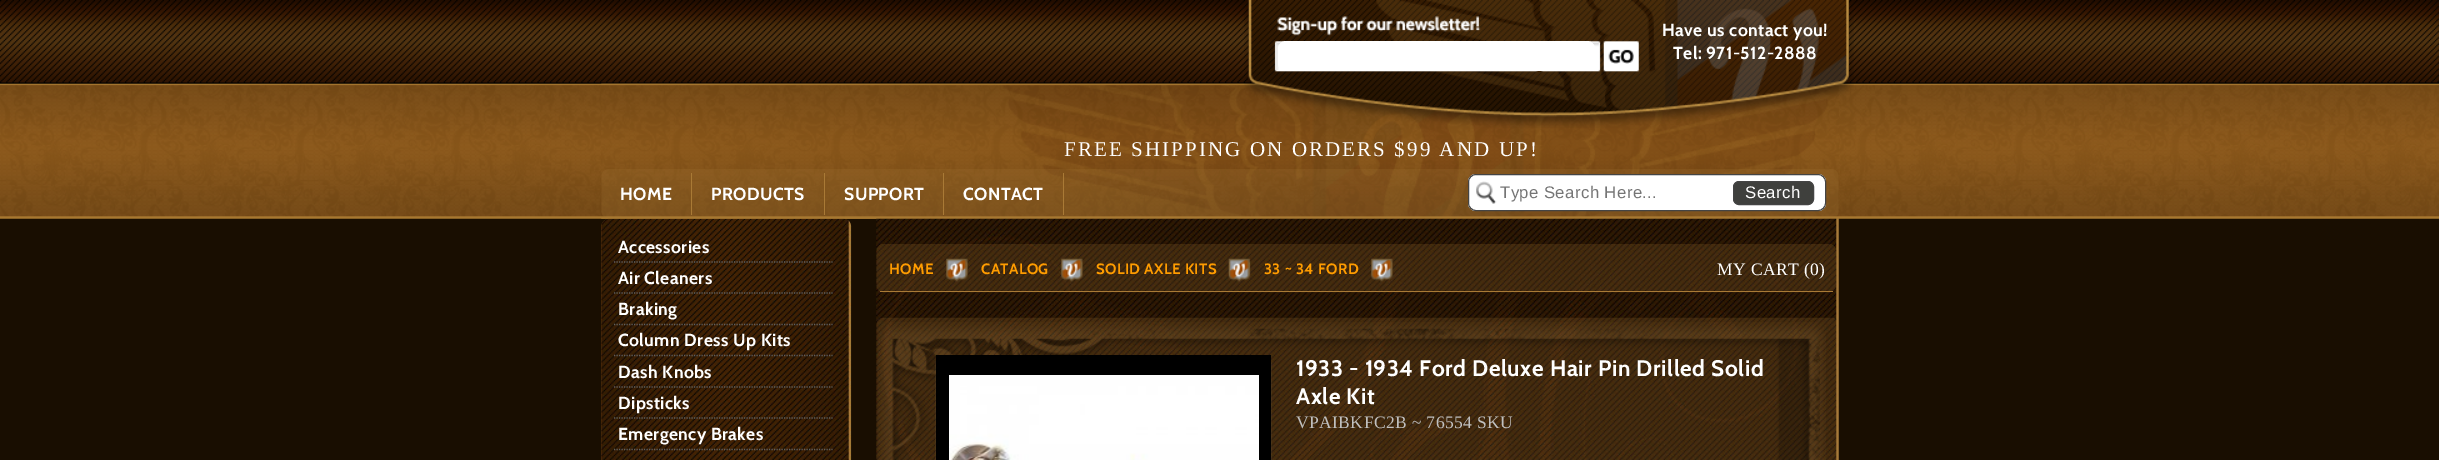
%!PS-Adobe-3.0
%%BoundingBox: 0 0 2439 460
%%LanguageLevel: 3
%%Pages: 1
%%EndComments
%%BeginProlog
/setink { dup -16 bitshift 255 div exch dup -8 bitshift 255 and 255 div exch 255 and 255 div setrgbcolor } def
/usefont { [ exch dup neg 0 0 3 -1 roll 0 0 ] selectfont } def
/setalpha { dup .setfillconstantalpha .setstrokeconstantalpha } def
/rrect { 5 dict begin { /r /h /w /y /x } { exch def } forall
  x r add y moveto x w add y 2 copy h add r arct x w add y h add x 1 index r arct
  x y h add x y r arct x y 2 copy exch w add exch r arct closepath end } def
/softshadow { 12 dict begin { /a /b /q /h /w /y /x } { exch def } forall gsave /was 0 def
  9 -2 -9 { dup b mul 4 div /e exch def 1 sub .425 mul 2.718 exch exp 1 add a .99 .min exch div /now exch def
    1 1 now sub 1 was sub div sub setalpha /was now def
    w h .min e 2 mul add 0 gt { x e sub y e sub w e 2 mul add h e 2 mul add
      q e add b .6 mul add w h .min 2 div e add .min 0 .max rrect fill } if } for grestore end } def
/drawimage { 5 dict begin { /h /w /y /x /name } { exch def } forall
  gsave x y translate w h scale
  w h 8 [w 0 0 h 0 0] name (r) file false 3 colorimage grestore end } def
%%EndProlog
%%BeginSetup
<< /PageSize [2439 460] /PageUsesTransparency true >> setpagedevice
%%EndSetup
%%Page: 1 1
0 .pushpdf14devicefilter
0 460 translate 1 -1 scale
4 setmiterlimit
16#190E01 setink
0 0 2439 460 rectfill
(img1.raw) 0 0 2439 219 drawimage
(img2.raw) 601 83 1238 136 drawimage
(img3.raw) 1244 0 610 128 drawimage
(img4.raw) 1274 16 365 56 drawimage
16#FFFFFF setink
1278 41 317 30 8 rrect fill
/Cabin-Bold 17.5 usefont
1662 36 moveto 0.4 0 (Have us contact you!) ashow
1673 59 moveto 0.4 0 (Tel: 971-512-2888) ashow
/LiberationSerif-Regular 21 usefont
1064 156 moveto 2.1 0 (FREE SHIPPING ON ORDERS $99 AND UP!) ashow
16#55300B setink
601 219 250 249 8 rrect fill
(img7.raw) 601 218 251 242 drawimage
(img8.raw) 876 218 963 242 drawimage
(img5.raw) 601 169 1238 50 drawimage
16#A97A36 setink
691 173 1 42 rectfill
/Cabin-Bold 17.5 usefont
16#FFFFFF setink
620 200 moveto 0.4 0 (HOME) ashow
16#A97A36 setink
824 173 1 42 rectfill
16#FFFFFF setink
711 200 moveto 0.4 0 (PRODUCTS) ashow
16#A97A36 setink
943 173 1 42 rectfill
16#FFFFFF setink
844 200 moveto 0.4 0 (SUPPORT) ashow
16#A97A36 setink
1063 173 1 42 rectfill
16#FFFFFF setink
963 200 moveto 0.4 0 (CONTACT) ashow
1468 174 358 37 8 rrect fill
(img6.raw) 1476 181 21 23 drawimage
16#444444 setink
1468.5 174.5 357 36 7.5 rrect stroke
/LiberationSans-Regular 16.75 usefont
16#757575 setink
1500 198 moveto 0.4 0 (Type Search Here...) ashow
16#3F403D setink
1733.5 181.5 80 23 5.5 rrect gsave fill grestore
16#444444 setink
stroke
16#FFFFFF setink
1745 198 moveto 0.4 0 (Search) ashow
(img9.raw) 876 244 960 49 drawimage
/LiberationSerif-Regular 17.5 usefont
1717 275 moveto 0.4 0 (MY CART \(0\)) ashow
16#5F5F5F setink
1.2 setlinewidth
[1.25 1.25] 0 setdash
614 262 moveto 832.5 262 lineto stroke
/Cabin-Bold 17.5 usefont
16#FFFFFF setink
618 253 moveto 0.4 0 (Accessories) ashow
16#5F5F5F setink
614 293 moveto 832.5 293 lineto stroke
16#FFFFFF setink
618 284 moveto 0.4 0 (Air Cleaners) ashow
16#5F5F5F setink
614 324.5 moveto 832.5 324.5 lineto stroke
16#FFFFFF setink
618 315 moveto 0.4 0 (Braking) ashow
16#5F5F5F setink
614 355.5 moveto 832.5 355.5 lineto stroke
16#FFFFFF setink
618 346 moveto 0.4 0 (Column Dress Up Kits) ashow
16#5F5F5F setink
614 387 moveto 832.5 387 lineto stroke
16#FFFFFF setink
618 378 moveto 0.4 0 (Dash Knobs) ashow
16#5F5F5F setink
614 418 moveto 832.5 418 lineto stroke
16#FFFFFF setink
618 409 moveto 0.4 0 (Dipsticks) ashow
16#5F5F5F setink
614 449.5 moveto 832.5 449.5 lineto stroke
16#FFFFFF setink
618 440 moveto 0.4 0 (Emergency Brakes) ashow
16#A97A36 setink
880 291 953 1 rectfill
(img10.raw) 946 258 22 24 drawimage
/Cabin-Bold 15 usefont
16#FF9C00 setink
889 274 moveto 0.4 0 (HOME) ashow
(img11.raw) 1061 258 22 24 drawimage
981 274 moveto 0.4 0 (CATALOG) ashow
(img12.raw) 1228 258 23 24 drawimage
1096 274 moveto 0.4 0 (SOLID AXLE KITS) ashow
(img13.raw) 1371 258 22 24 drawimage
1264 274 moveto 0.4 0 (33 ~ 34 FORD) ashow
(img14.raw) 876 317 961 143 drawimage
(img15.raw) 878 322 948 138 drawimage
16#5C4932 setink
936 356 335 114 8 0.5 1 softshadow
16#000000 setink
936 355 335 105 rectfill
(img16.raw) 949 375 310 85 drawimage
/Cabin-Bold 22.5 usefont
16#FFFFFF setink
1296 376 moveto 0.55 0 (1933 - 1934 Ford Deluxe Hair Pin Drilled Solid) ashow
1296 404 moveto 0.55 0 (Axle Kit) ashow
/LiberationSerif-Regular 17.5 usefont
16#C0C0C0 setink
1296 428 moveto 0.4 0 (VPAIBKFC2B ~ 76554 SKU) ashow
.poppdf14devicefilter showpage
%%EOF
